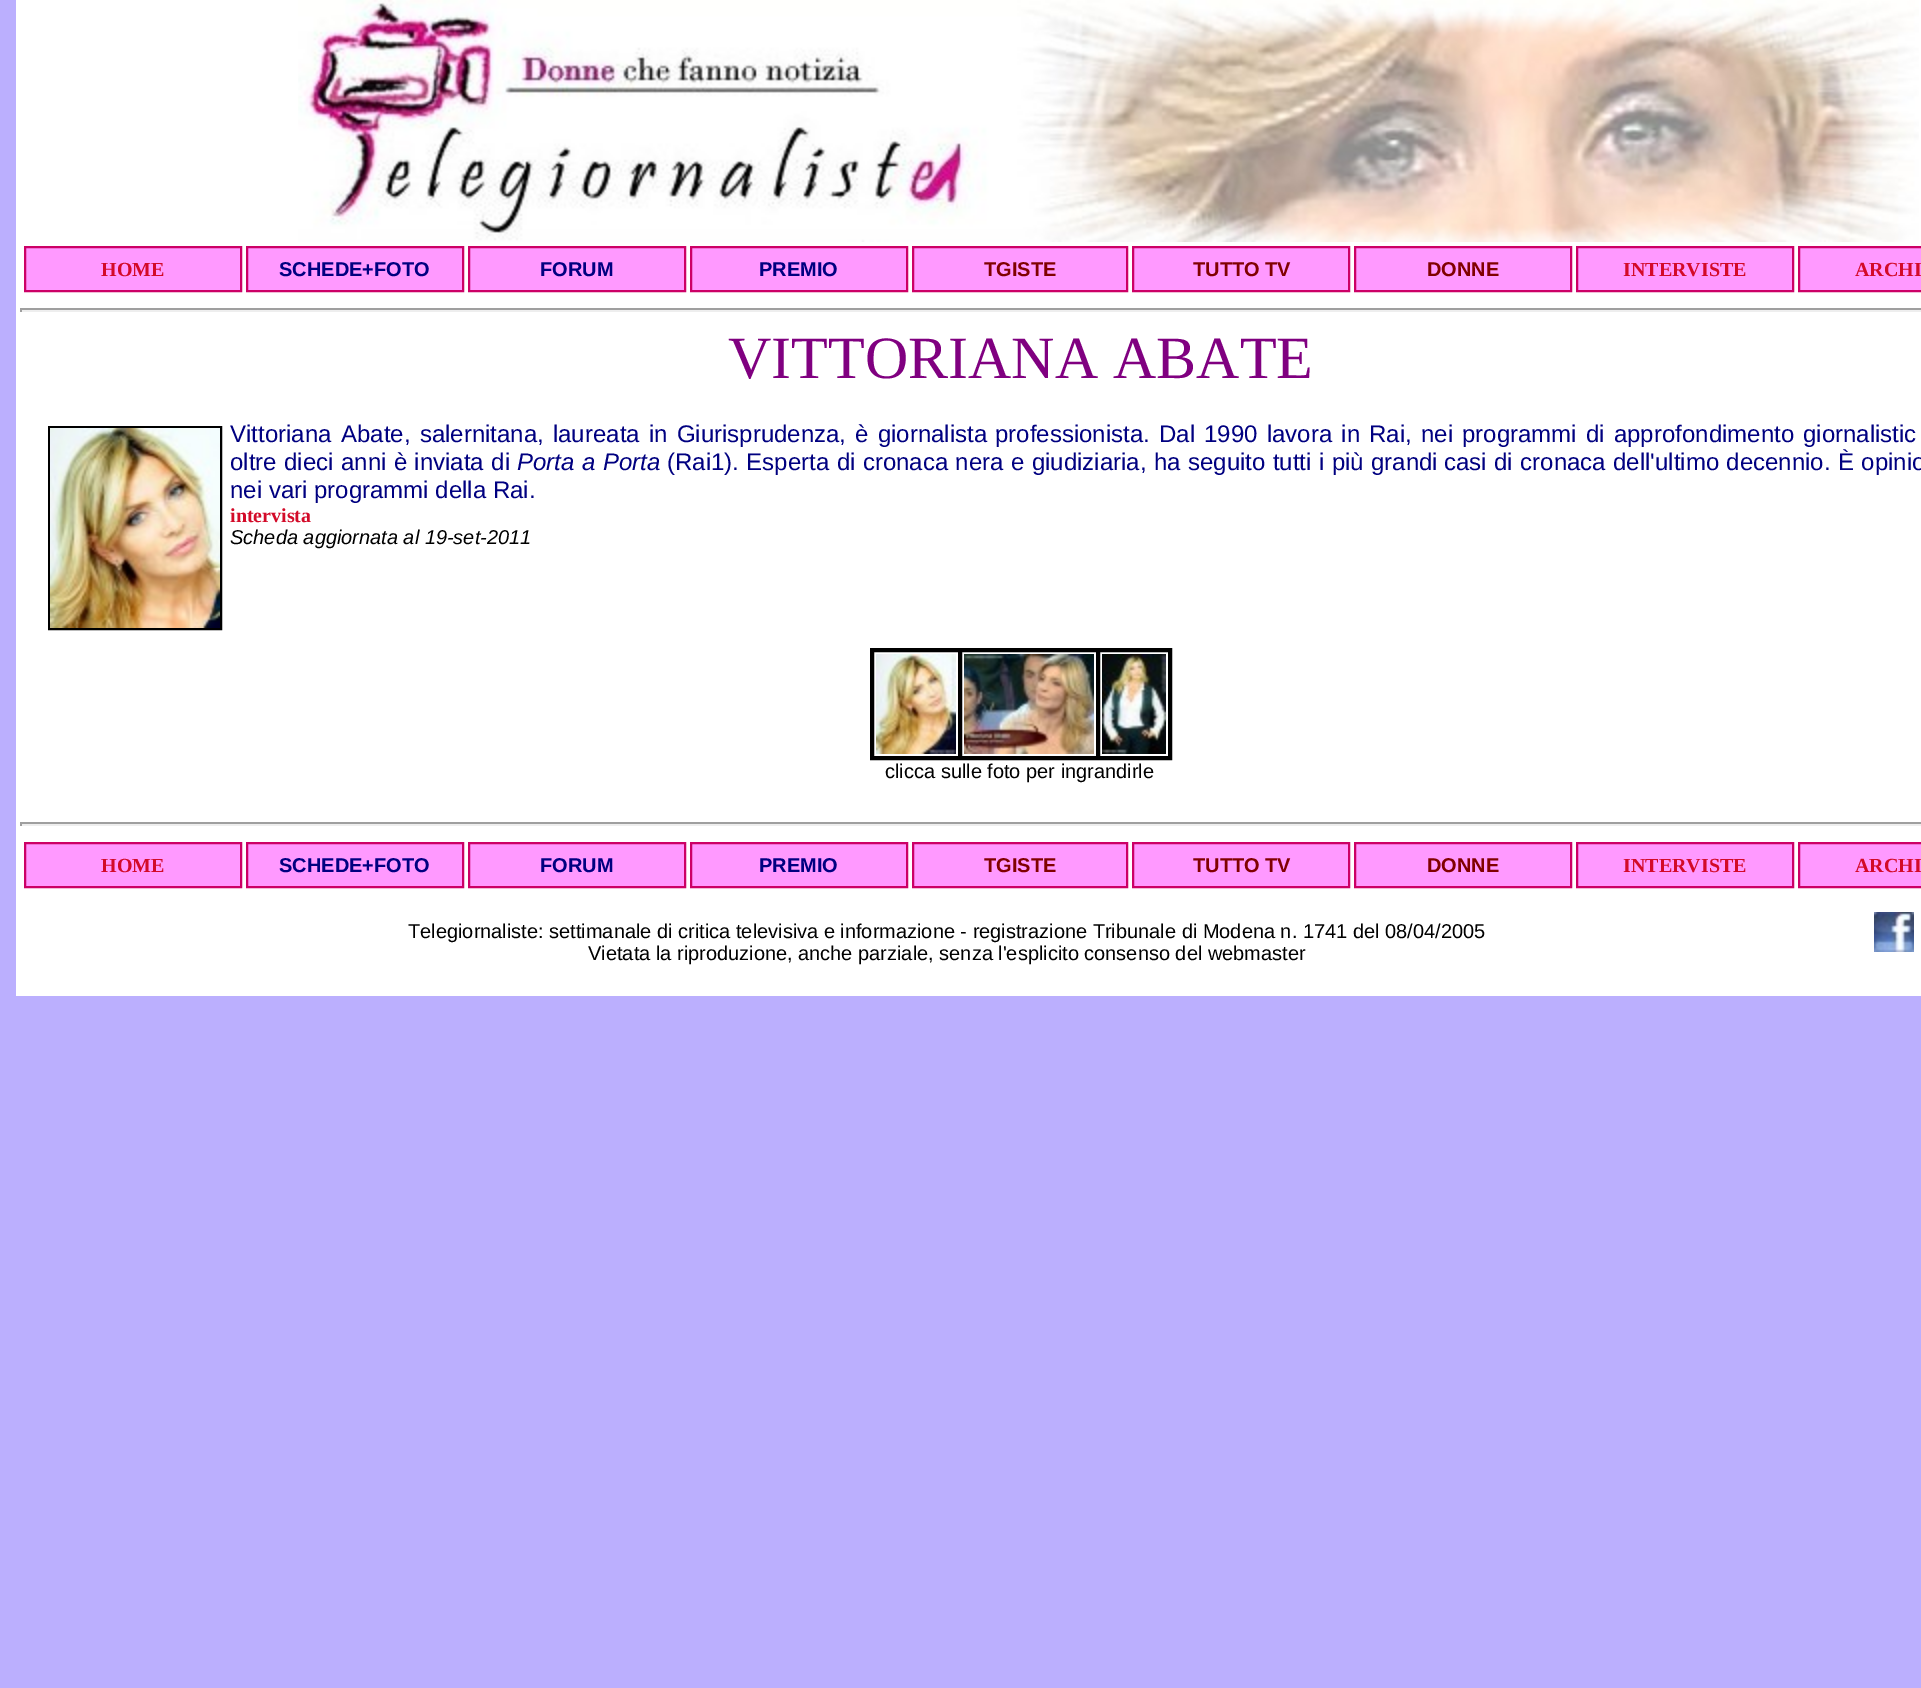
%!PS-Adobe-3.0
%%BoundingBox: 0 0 1921 1688
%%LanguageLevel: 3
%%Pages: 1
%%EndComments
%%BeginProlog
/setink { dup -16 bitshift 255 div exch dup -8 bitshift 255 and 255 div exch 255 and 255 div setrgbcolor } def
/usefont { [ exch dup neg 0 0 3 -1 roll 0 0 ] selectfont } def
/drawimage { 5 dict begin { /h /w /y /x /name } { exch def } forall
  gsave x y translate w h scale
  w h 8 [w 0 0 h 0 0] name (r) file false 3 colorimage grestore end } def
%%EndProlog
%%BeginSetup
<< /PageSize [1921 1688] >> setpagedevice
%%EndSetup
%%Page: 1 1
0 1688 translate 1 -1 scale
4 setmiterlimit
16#BBAFFE setink
0 0 1921 1688 rectfill
16#FFFFFF setink
16 0 1905 996 rectfill
(img1.raw) 298 0 1621 242 drawimage
16#FF99FF setink
25 247 moveto 241 247 lineto 241 291 lineto 25 291 lineto closepath gsave fill grestore
16#CC0066 setink
2 setlinewidth
stroke
/LiberationSerif-Bold 20 usefont
16#D30A28 setink
101 276 moveto (HOME) show
16#FF99FF setink
247 247 moveto 463 247 lineto 463 291 lineto 247 291 lineto closepath gsave fill grestore
16#CC0066 setink
stroke
/LiberationSans-Bold 20 usefont
16#000080 setink
279 276 moveto (SCHEDE+FOTO) show
16#FF99FF setink
469 247 moveto 685 247 lineto 685 291 lineto 469 291 lineto closepath gsave fill grestore
16#CC0066 setink
stroke
16#000080 setink
540 276 moveto (FORUM) show
16#FF99FF setink
691 247 moveto 907 247 lineto 907 291 lineto 691 291 lineto closepath gsave fill grestore
16#CC0066 setink
stroke
16#000080 setink
759 276 moveto (PREMIO) show
16#FF99FF setink
913 247 moveto 1127 247 lineto 1127 291 lineto 913 291 lineto closepath gsave fill grestore
16#CC0066 setink
stroke
16#800000 setink
984 276 moveto (TGISTE) show
16#FF99FF setink
1133 247 moveto 1349 247 lineto 1349 291 lineto 1133 291 lineto closepath gsave fill grestore
16#CC0066 setink
stroke
16#800000 setink
1193 276 moveto (TUTTO TV) show
16#FF99FF setink
1355 247 moveto 1571 247 lineto 1571 291 lineto 1355 291 lineto closepath gsave fill grestore
16#CC0066 setink
stroke
16#800000 setink
1427 276 moveto (DONNE) show
16#FF99FF setink
1577 247 moveto 1793 247 lineto 1793 291 lineto 1577 291 lineto closepath gsave fill grestore
16#CC0066 setink
stroke
/LiberationSerif-Bold 20 usefont
16#D30A28 setink
1623 276 moveto (INTERVISTE) show
16#FF99FF setink
1799 247 moveto 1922 247 lineto 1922 291 lineto 1799 291 lineto closepath gsave fill grestore
16#CC0066 setink
stroke
16#D30A28 setink
1855 276 moveto (ARCHI) show
[
    [20 308 1901 2 16#9F9F9F]
    [20 310 1901 2 16#EEEEEE]
    [20 308 2 4 16#9F9F9F]
] { aload pop setink rectfill } forall
/LiberationSerif-Regular 60 usefont
16#800080 setink
728 378 moveto (VITTORIANA ABATE) show
16#000000 setink
49 427 172 202 rectstroke
(img2.raw) 50 428 170 200 drawimage
/LiberationSans-Regular 24 usefont
16#000080 setink
230 442 moveto (Vittoriana) show
341 442 moveto 2.5 0 32 (Abate, salernitana, laureata in Giurisprudenza, è giornalista) widthshow
995 442 moveto 2.5 0 32 (professionista. Dal 1990 lavora in Rai, nei programmi di approfondimento) widthshow
1803 442 moveto 2.5 0 32 (giornalistic) widthshow
230 470 moveto 0.75 0 32 (oltre dieci anni è inviata di) widthshow
/LiberationSans-Italic 24 usefont
517 470 moveto 0.75 0 32 (Porta a Porta) widthshow
/LiberationSans-Regular 24 usefont
667 470 moveto 0.75 0 32 (\(Rai1\). Esperta di cronaca nera e giudiziaria, ha seguito tutti i più grandi) widthshow
1444 470 moveto 0.75 0 32 (casi di cronaca dell'ultimo decennio. È opinio) widthshow
230 498 moveto (nei vari programmi della Rai.) show
/LiberationSerif-Bold 20 usefont
16#D30A28 setink
230 522 moveto (intervista) show
/LiberationSans-Italic 20 usefont
16#000000 setink
230 544 moveto (Scheda aggiornata al 19-set-2011) show
871 649 300 110 rectstroke
873 651 86 106 rectstroke
(img3.raw) 876 654 80 100 drawimage
961 651 136 106 rectstroke
(img4.raw) 964 654 130 100 drawimage
1099 651 70 106 rectstroke
(img5.raw) 1102 654 64 100 drawimage
/LiberationSans-Regular 20 usefont
885 778 moveto (clicca sulle foto per ingrandirle) show
[
    [20 822 1901 2 16#9F9F9F]
    [20 824 1901 2 16#EEEEEE]
    [20 822 2 4 16#9F9F9F]
] { aload pop setink rectfill } forall
16#FF99FF setink
25 843 moveto 241 843 lineto 241 887 lineto 25 887 lineto closepath gsave fill grestore
16#CC0066 setink
stroke
/LiberationSerif-Bold 20 usefont
16#D30A28 setink
101 872 moveto (HOME) show
16#FF99FF setink
247 843 moveto 463 843 lineto 463 887 lineto 247 887 lineto closepath gsave fill grestore
16#CC0066 setink
stroke
/LiberationSans-Bold 20 usefont
16#000080 setink
279 872 moveto (SCHEDE+FOTO) show
16#FF99FF setink
469 843 moveto 685 843 lineto 685 887 lineto 469 887 lineto closepath gsave fill grestore
16#CC0066 setink
stroke
16#000080 setink
540 872 moveto (FORUM) show
16#FF99FF setink
691 843 moveto 907 843 lineto 907 887 lineto 691 887 lineto closepath gsave fill grestore
16#CC0066 setink
stroke
16#000080 setink
759 872 moveto (PREMIO) show
16#FF99FF setink
913 843 moveto 1127 843 lineto 1127 887 lineto 913 887 lineto closepath gsave fill grestore
16#CC0066 setink
stroke
16#800000 setink
984 872 moveto (TGISTE) show
16#FF99FF setink
1133 843 moveto 1349 843 lineto 1349 887 lineto 1133 887 lineto closepath gsave fill grestore
16#CC0066 setink
stroke
16#800000 setink
1193 872 moveto (TUTTO TV) show
16#FF99FF setink
1355 843 moveto 1571 843 lineto 1571 887 lineto 1355 887 lineto closepath gsave fill grestore
16#CC0066 setink
stroke
16#800000 setink
1427 872 moveto (DONNE) show
16#FF99FF setink
1577 843 moveto 1793 843 lineto 1793 887 lineto 1577 887 lineto closepath gsave fill grestore
16#CC0066 setink
stroke
/LiberationSerif-Bold 20 usefont
16#D30A28 setink
1623 872 moveto (INTERVISTE) show
16#FF99FF setink
1799 843 moveto 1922 843 lineto 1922 887 lineto 1799 887 lineto closepath gsave fill grestore
16#CC0066 setink
stroke
16#D30A28 setink
1855 872 moveto (ARCHI) show
/LiberationSans-Regular 20 usefont
16#000000 setink
408 938 moveto (Telegiornaliste: settimanale di critica televisiva e informazione - registrazione Tribunale di Modena n. 1741 del 08/04/2005) show
588 960 moveto (Vietata la riproduzione, anche parziale, senza l'esplicito consenso del webmaster) show
(img6.raw) 1874 912 40 40 drawimage
showpage
%%EOF
